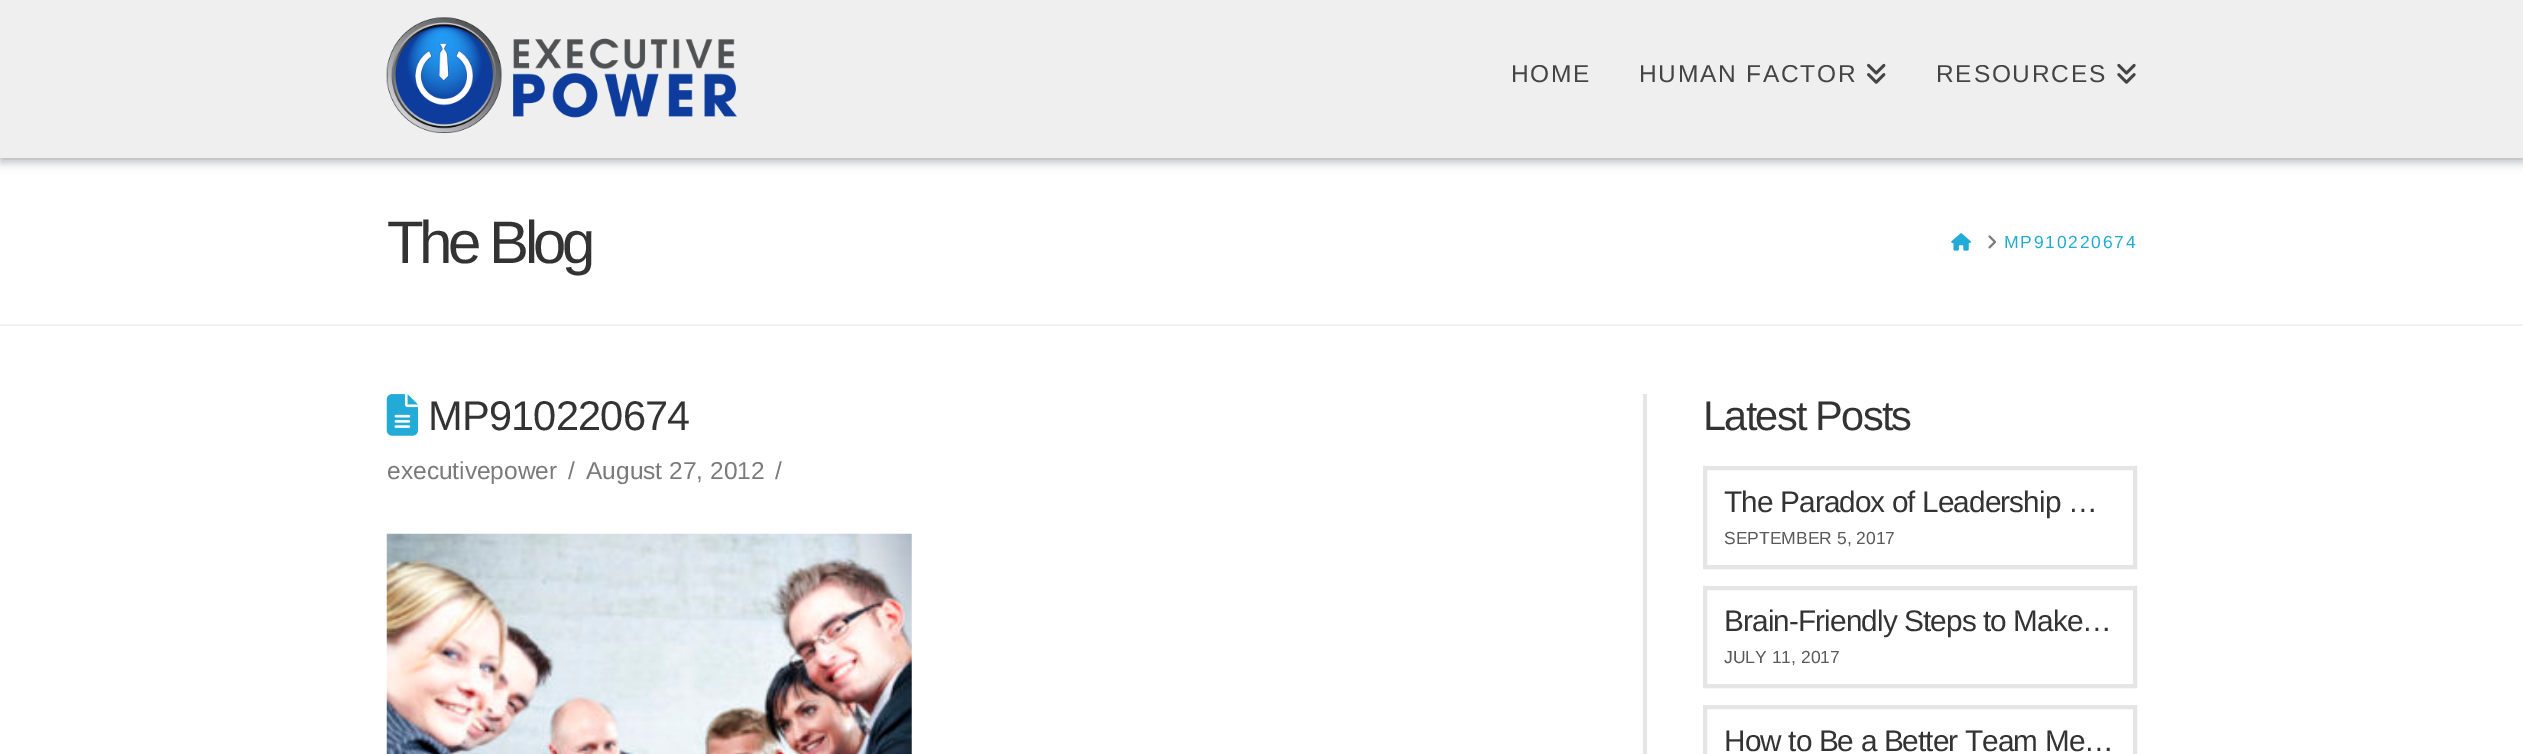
%!PS-Adobe-3.0
%%BoundingBox: 0 0 2523 754
%%LanguageLevel: 3
%%Pages: 1
%%EndComments
%%BeginProlog
/setink { dup -16 bitshift 255 div exch dup -8 bitshift 255 and 255 div exch 255 and 255 div setrgbcolor } def
/usefont { [ exch dup neg 0 0 3 -1 roll 0 0 ] selectfont } def
/setalpha { dup .setfillconstantalpha .setstrokeconstantalpha } def
/rrect { 5 dict begin { /r /h /w /y /x } { exch def } forall
  x r add y moveto x w add y 2 copy h add r arct x w add y h add x 1 index r arct
  x y h add x y r arct x y 2 copy exch w add exch r arct closepath end } def
/softshadow { 12 dict begin { /a /b /q /h /w /y /x } { exch def } forall gsave /was 0 def
  9 -2 -9 { dup b mul 4 div /e exch def 1 sub .425 mul 2.718 exch exp 1 add a .99 .min exch div /now exch def
    1 1 now sub 1 was sub div sub setalpha /was now def
    w h .min e 2 mul add 0 gt { x e sub y e sub w e 2 mul add h e 2 mul add
      q e add b .6 mul add w h .min 2 div e add .min 0 .max rrect fill } if } for grestore end } def
/drawimage { 5 dict begin { /h /w /y /x /name } { exch def } forall
  gsave x y translate w h scale
  w h 8 [w 0 0 h 0 0] name (r) file false 3 colorimage grestore end } def
%%EndProlog
%%BeginSetup
<< /PageSize [2523 754] /PageUsesTransparency true >> setpagedevice
%%EndSetup
%%Page: 1 1
0 .pushpdf14devicefilter
0 754 translate 1 -1 scale
4 setmiterlimit
16#FFFFFF setink
0 0 2523 754 rectfill
16#F2F2F2 setink
0 158 2523 2 rectfill
16#393F48 setink
0 5 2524 158 0 4.5 0.3 softshadow
16#EFEFEF setink
0 0 2523 158 rectfill
(img1.raw) 386 17 351 116 drawimage
/LiberationSans-Regular 24.5 usefont
16#444444 setink
1511 82 moveto 1.75 0 (HOME) ashow
1639 82 moveto 1.75 0 (HUMAN FACTOR) ashow
(img2.raw) 1867 63 19 21 drawimage
1936 82 moveto 1.75 0 (RESOURCES) ashow
(img3.raw) 2117 63 19 21 drawimage
16#F2F2F2 setink
0 324 2523 2 rectfill
/LiberationSans-Regular 60 usefont
16#333333 setink
387 263 moveto -4.5 0 (The Blog) ashow
(img4.raw) 1951 233 20 18 drawimage
(img5.raw) 1988 235 8 14 drawimage
/LiberationSans-Regular 17.5 usefont
16#23ABD7 setink
2004 248 moveto 1.75 0 (MP910220674) ashow
16#E5E5E5 setink
1643 394 4 360 rectfill
(img6.raw) 386 394 32 42 drawimage
/LiberationSans-Regular 41.5 usefont
16#333333 setink
428 430 moveto -0.75 0 (MP910220674) ashow
/LiberationSans-Regular 24.5 usefont
16#7A7A7A setink
[
    [(executivepower) 387 479]
    [(/) 568 479]
    [(August 27, 2012) 586 479]
    [(/) 775 479]
] { aload pop moveto show } forall
(img7.raw) 386 533 526 221 drawimage
/LiberationSans-Regular 41.5 usefont
16#333333 setink
1703 430 moveto -1.75 0 (Latest Posts) ashow
16#E5E5E5 setink
4 setlinewidth
1705 468 430 99 rectstroke
/LiberationSans-Regular 29.75 usefont
16#333333 setink
1724 512 moveto -0.9 0 (The Paradox of Leadership …) ashow
/LiberationSans-Regular 17.5 usefont
16#595959 setink
1724 544 moveto (SEPTEMBER 5, 2017) show
16#E5E5E5 setink
1705 588 430 98 rectstroke
/LiberationSans-Regular 29.75 usefont
16#333333 setink
1724 631 moveto -0.9 0 (Brain-Friendly Steps to Make…) ashow
/LiberationSans-Regular 17.5 usefont
16#595959 setink
1724 663 moveto (JULY 11, 2017) show
16#E5E5E5 setink
1705 707 430 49 rectstroke
/LiberationSans-Regular 29.75 usefont
16#333333 setink
1724 751 moveto -0.9 0 (How to Be a Better Team Me…) ashow
.poppdf14devicefilter showpage
%%EOF
